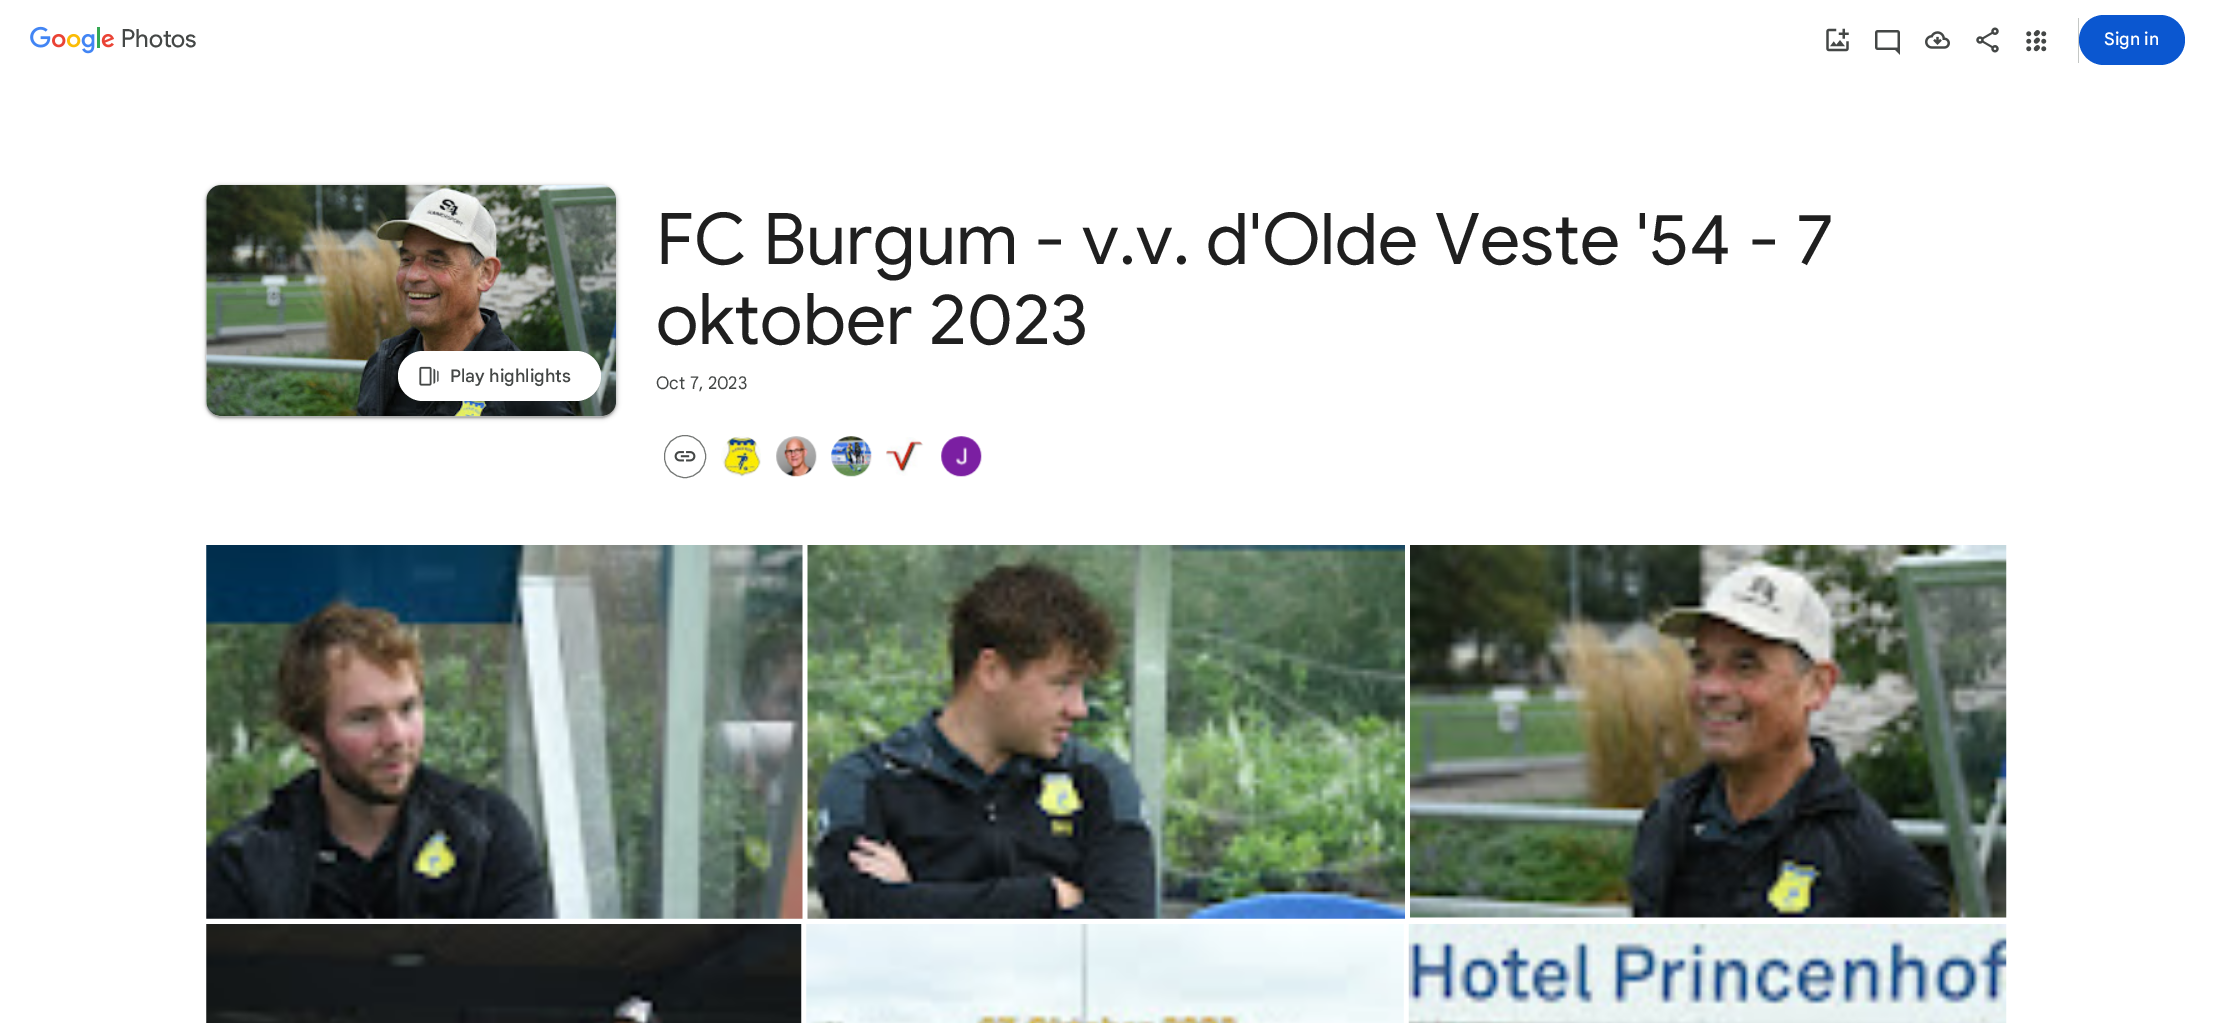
%!PS-Adobe-3.0
%%BoundingBox: 0 0 2229 1023
%%LanguageLevel: 3
%%Pages: 1
%%EndComments
%%BeginProlog
/setink { dup -16 bitshift 255 div exch dup -8 bitshift 255 and 255 div exch 255 and 255 div setrgbcolor } def
/usefont { [ exch dup neg 0 0 3 -1 roll 0 0 ] selectfont } def
/setalpha { dup .setfillconstantalpha .setstrokeconstantalpha } def
/rrect { 5 dict begin { /r /h /w /y /x } { exch def } forall
  x r add y moveto x w add y 2 copy h add r arct x w add y h add x 1 index r arct
  x y h add x y r arct x y 2 copy exch w add exch r arct closepath end } def
/softshadow { 12 dict begin { /a /b /q /h /w /y /x } { exch def } forall gsave /was 0 def
  9 -2 -9 { dup b mul 4 div /e exch def 1 sub .425 mul 2.718 exch exp 1 add a .99 .min exch div /now exch def
    1 1 now sub 1 was sub div sub setalpha /was now def
    w h .min e 2 mul add 0 gt { x e sub y e sub w e 2 mul add h e 2 mul add
      q e add b .6 mul add w h .min 2 div e add .min 0 .max rrect fill } if } for grestore end } def
/drawimage { 5 dict begin { /h /w /y /x /name } { exch def } forall
  gsave x y translate w h scale
  w h 8 [w 0 0 h 0 0] name (r) file false 3 colorimage grestore end } def
%%EndProlog
%%BeginSetup
<< /PageSize [2229 1023] /PageUsesTransparency true >> setpagedevice
%%EndSetup
%%Page: 1 1
0 .pushpdf14devicefilter
0 1023 translate 1 -1 scale
4 setmiterlimit
16#FFFFFF setink
0 0 2229 1023 rectfill
(img1.raw) 30 26 84 28 drawimage
/ProductSans-Regular 25 usefont
16#444746 setink
121 47 moveto (Photos) show
(img2.raw) 1826 28 23 24 drawimage
(img3.raw) 1875 30 25 25 drawimage
(img4.raw) 1925 31 25 18 drawimage
(img5.raw) 1976 27 23 26 drawimage
(img6.raw) 2035 30 5 20 drawimage
16#C4C7C5 setink
2078 18 1 45 rectfill
16#F8FAFD setink
206 185 410 231 15 rrect fill
16#000000 setink
205 185 413 234 16 2 0.15 softshadow
206 186 410 232 15 1 0.3 softshadow
(img7.raw) 206 185 411 232 drawimage
16#FFFFFF setink
398 351 203 50 25 rrect fill
(img8.raw) 419 366 20 20 drawimage
/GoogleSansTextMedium-Medium 17.5 usefont
16#444746 setink
450 382 moveto (Play highlights) show
/GoogleSans-Regular 71.25 usefont
16#1F1F1F setink
656 264 moveto (FC Burgum - v.v. d'Olde Veste '54 - 7) show
656 344 moveto (oktober 2023) show
/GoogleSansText-Regular 17.5 usefont
16#444746 setink
656 389 moveto (Oct 7, 2023) show
16#747775 setink
664.5 435.5 41 42 20.5 rrect stroke
(img9.raw) 674 451 22 11 drawimage
(img10.raw) 721 436 40 41 drawimage
(img11.raw) 776 436 41 41 drawimage
(img12.raw) 831 436 41 41 drawimage
(img13.raw) 886 437 38 39 drawimage
(img14.raw) 941 436 41 41 drawimage
(img15.raw) 206 545 597 374 drawimage
(img16.raw) 807 545 598 374 drawimage
(img17.raw) 1410 545 597 373 drawimage
(img18.raw) 206 924 596 99 drawimage
(img19.raw) 806 924 598 99 drawimage
(img20.raw) 1408 924 599 99 drawimage
(img21.raw) 2026 31 21 21 drawimage
16#0B57D0 setink
2079 15 106 50 25 rrect fill
/GoogleSansTextMedium-Medium 17.5 usefont
16#FFFFFF setink
2104 45 moveto (Sign in) show
.poppdf14devicefilter showpage
%%EOF
